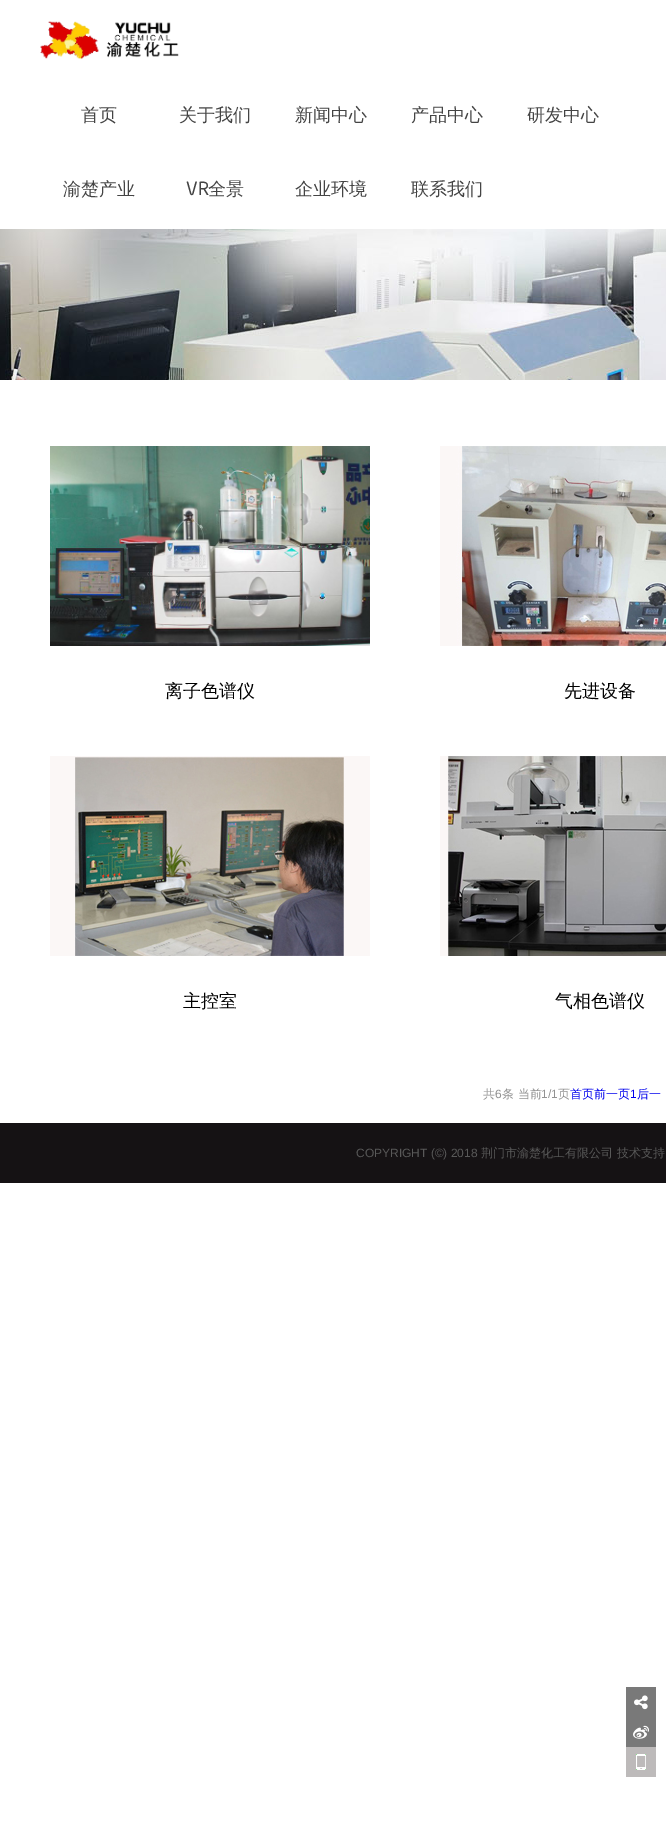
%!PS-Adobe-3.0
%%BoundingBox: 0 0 666 1837
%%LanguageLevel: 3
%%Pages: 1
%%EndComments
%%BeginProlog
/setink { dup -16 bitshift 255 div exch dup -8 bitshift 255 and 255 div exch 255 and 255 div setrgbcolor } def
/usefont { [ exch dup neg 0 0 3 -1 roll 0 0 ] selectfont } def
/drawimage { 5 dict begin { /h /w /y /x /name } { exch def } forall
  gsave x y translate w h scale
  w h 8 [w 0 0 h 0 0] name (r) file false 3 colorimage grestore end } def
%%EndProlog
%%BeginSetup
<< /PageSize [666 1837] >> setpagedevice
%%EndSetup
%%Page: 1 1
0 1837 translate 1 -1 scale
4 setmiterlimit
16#FFFFFF setink
0 0 666 1837 rectfill
(img1.raw) 40 21 139 39 drawimage
/WenQuanYiZenHei-Medium 18 usefont
16#444444 setink
[
    [(首页) 81 121]
    [(关于我们) 179 121]
    [(新闻中心) 295 121]
    [(产品中心) 411 121]
    [(研发中心) 527 121]
    [(渝楚产业) 63 195]
] { aload pop moveto show } forall
/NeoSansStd-Regular 18 usefont
186 195 moveto (VR) show
/WenQuanYiZenHei-Medium 18 usefont
[
    [(全景) 208 195]
    [(企业环境) 295 195]
    [(联系我们) 411 195]
] { aload pop moveto show } forall
(img2.raw) 0 229 666 151 drawimage
(img3.raw) 50 446 320 200 drawimage
16#000000 setink
165 697 moveto (离子色谱仪) show
(img4.raw) 440 446 226 200 drawimage
564 697 moveto (先进设备) show
(img5.raw) 50 756 320 200 drawimage
183 1007 moveto (主控室) show
(img6.raw) 440 756 226 200 drawimage
555 1007 moveto (气相色谱仪) show
/WenQuanYiZenHei-Medium 12 usefont
16#929292 setink
483 1098 moveto (共) show
/LiberationSans-Regular 12 usefont
495 1098 moveto (6) show
/WenQuanYiZenHei-Medium 12 usefont
502 1098 moveto (条 当前) show
/LiberationSans-Regular 12 usefont
541 1098 moveto (1/1) show
/WenQuanYiZenHei-Medium 12 usefont
558 1098 moveto (页) show
16#0000EE setink
570 1098 moveto (首页前一页) show
/LiberationSans-Regular 12 usefont
630 1098 moveto (1) show
/WenQuanYiZenHei-Medium 12 usefont
637 1098 moveto (后一) show
16#151214 setink
0 1123 666 60 rectfill
/LiberationSans-Regular 12 usefont
16#595959 setink
356 1157 moveto (COPYRIGHT \(©\) 2018) show
/WenQuanYiZenHei-Medium 12 usefont
481 1157 moveto (荆门市渝楚化工有限公司 技术支持) show
16#797979 setink
626 1687 30 60 rectfill
(img7.raw) 634 1695 14 15 drawimage
(img8.raw) 633 1725 16 14 drawimage
16#BDBABA setink
626 1747 30 30 rectfill
(img9.raw) 636 1754 10 16 drawimage
showpage
%%EOF
